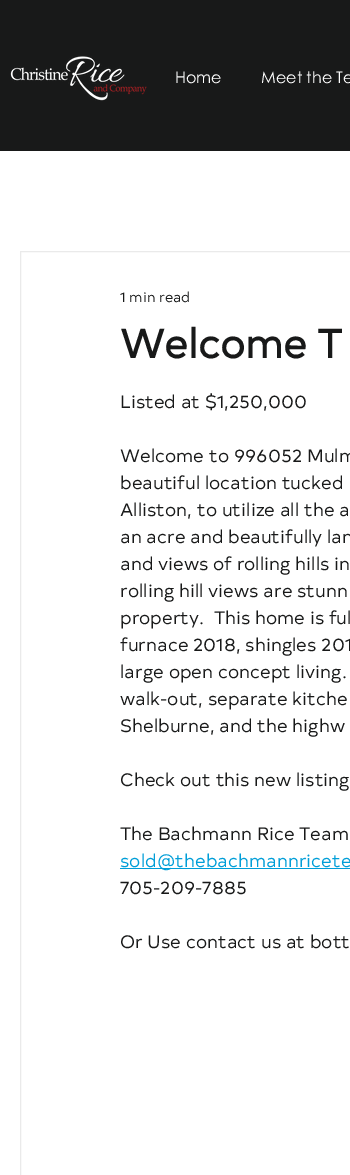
%!PS-Adobe-3.0
%%BoundingBox: 0 0 350 1175
%%LanguageLevel: 3
%%Pages: 1
%%EndComments
%%BeginProlog
/setink { dup -16 bitshift 255 div exch dup -8 bitshift 255 and 255 div exch 255 and 255 div setrgbcolor } def
/usefont { [ exch dup neg 0 0 3 -1 roll 0 0 ] selectfont } def
/drawimage { 5 dict begin { /h /w /y /x /name } { exch def } forall
  gsave x y translate w h scale
  w h 8 [w 0 0 h 0 0] name (r) file false 3 colorimage grestore end } def
%%EndProlog
%%BeginSetup
<< /PageSize [350 1175] >> setpagedevice
%%EndSetup
%%Page: 1 1
0 1175 translate 1 -1 scale
4 setmiterlimit
16#181919 setink
0 0 350 1175 rectfill
(img1.raw) 10 56 137 45 drawimage
/CenturyGothic-Regular 16 usefont
16#FFFFFF setink
175 83 moveto (Home) show
261 83 moveto (Meet the Te) show
0 151 350 1024 rectfill
16#EAEAEA setink
20.5 251.5 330 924 rectstroke
/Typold-Regular 14 usefont
16#181919 setink
120 302 moveto (1 min read) show
/Typold-Bold 40 usefont
120 358 moveto (Welcome T) show
/Typold-Regular 18 usefont
[
    [(Listed at $1,250,000) 120 408]
    [(Welcome to 996052 Mulm) 120 462]
    [(beautiful location tucked) 120 489]
    [(Alliston, to utilize all the a) 120 516]
    [(an acre and beautifully lan) 120 543]
    [(and views of rolling hills in) 120 570]
    [(rolling hill views are stunn) 120 597]
    [(property.  This home is ful) 120 624]
    [(furnace 2018, shingles 201) 120 651]
    [(large open concept living.) 120 678]
    [(walk-out, separate kitche) 120 705]
    [(Shelburne, and the highw) 120 732]
    [(Check out this new listing) 120 786]
    [(The Bachmann Rice Team) 120 840]
] { aload pop moveto show } forall
16#009ED8 setink
120 868 230 1 rectfill
120 867 moveto (sold@thebachmannricete) show
16#181919 setink
120 894 moveto (705-209-7885) show
120 948 moveto (Or Use contact us at bott) show
showpage
%%EOF
